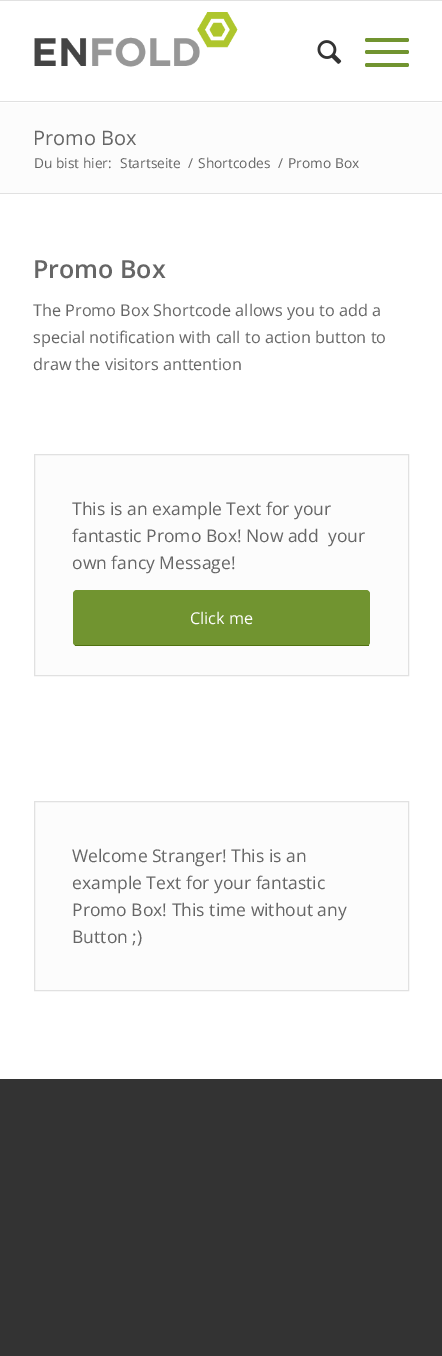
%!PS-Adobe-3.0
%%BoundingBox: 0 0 442 1356
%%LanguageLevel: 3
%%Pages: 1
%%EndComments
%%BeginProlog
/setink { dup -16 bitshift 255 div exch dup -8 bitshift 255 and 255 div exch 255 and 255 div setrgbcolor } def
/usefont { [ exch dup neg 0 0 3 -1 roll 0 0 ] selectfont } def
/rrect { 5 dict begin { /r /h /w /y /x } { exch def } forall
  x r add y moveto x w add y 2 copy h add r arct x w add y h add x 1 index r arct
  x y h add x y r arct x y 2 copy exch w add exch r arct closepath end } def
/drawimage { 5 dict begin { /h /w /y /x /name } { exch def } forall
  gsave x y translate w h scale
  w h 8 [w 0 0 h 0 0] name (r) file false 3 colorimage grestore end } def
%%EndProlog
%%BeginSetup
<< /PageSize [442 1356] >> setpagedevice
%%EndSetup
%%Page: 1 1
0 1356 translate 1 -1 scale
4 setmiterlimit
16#333333 setink
0 0 442 1356 rectfill
[
    [0 1 442 1078 16#FFFFFF]
    [0 0 442 1 16#E1E1E1]
    [0 101 442 1 16#E1E1E1]
] { aload pop setink rectfill } forall
(img1.raw) 34 12 204 55 drawimage
(img2.raw) 317 40 25 24 drawimage
16#719430 setink
365 50 44 4 2 rrect fill
365 38 44 4 2 rrect fill
365 63 44 4 2 rrect fill
16#FCFCFC setink
0 103 442 90 rectfill
/OpenSans-Regular 20 usefont
16#666666 setink
33 145 moveto (Promo Box) show
/OpenSans-Regular 13.75 usefont
[
    [(Du bist hier:) 34 168]
    [(Startseite) 120 168]
    [(/) 188 168]
    [(Shortcodes) 198 168]
    [(/) 278 168]
    [(Promo Box) 288 168]
] { aload pop moveto show } forall
16#E1E1E1 setink
0 193 442 1 rectfill
/OpenSans-SemiBold 25 usefont
16#666666 setink
33 278 moveto (Promo Box) show
/OpenSans-Regular 16.25 usefont
[
    [(The Promo Box Shortcode allows you to add a) 33 316]
    [(special notification with call to action button to) 33 343]
    [(draw the visitors anttention) 33 370]
] { aload pop moveto show } forall
16#FCFCFC setink
34.5 454.5 moveto 408.5 454.5 lineto 408.5 675.5 lineto 34.5 675.5 lineto closepath gsave fill grestore
16#E1E1E1 setink
stroke
/OpenSans-Regular 17.5 usefont
16#666666 setink
[
    [(This is an example Text for your) 72 515]
    [(fantastic Promo Box! Now add  your) 72 542]
    [(own fancy Message!) 72 569]
] { aload pop moveto show } forall
16#719430 setink
73 590 297 56 4 rrect fill
16#507210 setink
75 645 294 1 rectfill
/OpenSans-Regular 16.25 usefont
16#FFFFFF setink
190 624 moveto (Click me) show
16#FCFCFC setink
34.5 801.5 moveto 408.5 801.5 lineto 408.5 990.5 lineto 34.5 990.5 lineto closepath gsave fill grestore
16#E1E1E1 setink
stroke
/OpenSans-Regular 17.5 usefont
16#666666 setink
[
    [(Welcome Stranger! This is an) 72 862]
    [(example Text for your fantastic) 72 889]
    [(Promo Box! This time without any) 72 916]
    [(Button ;\)) 72 943]
] { aload pop moveto show } forall
showpage
%%EOF
